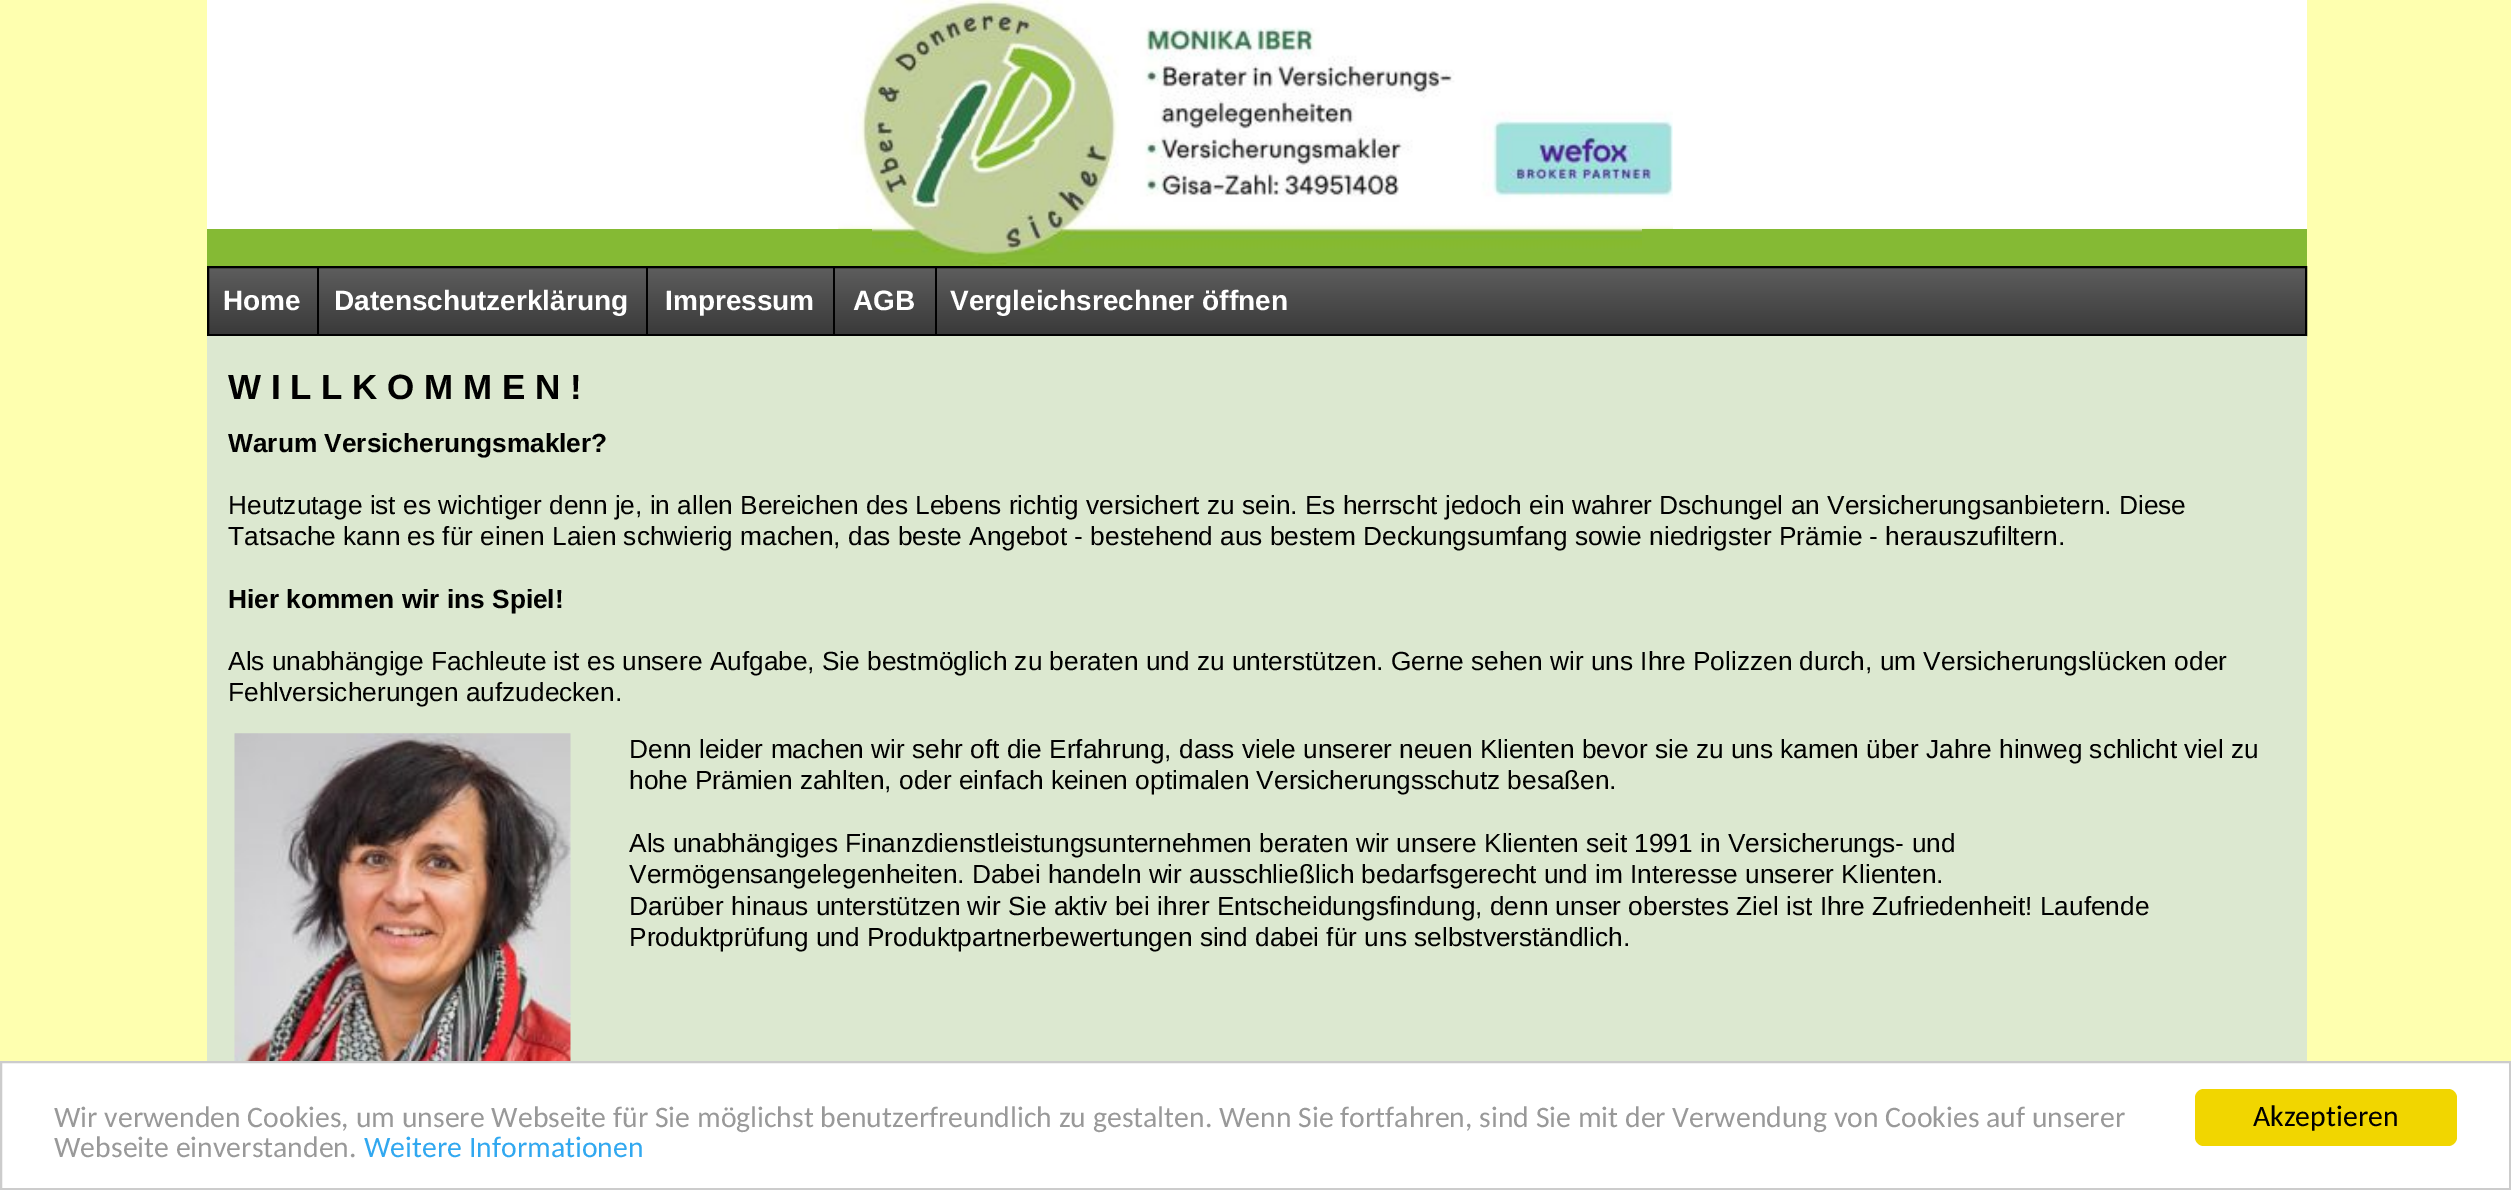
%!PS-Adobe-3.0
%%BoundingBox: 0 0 2511 1190
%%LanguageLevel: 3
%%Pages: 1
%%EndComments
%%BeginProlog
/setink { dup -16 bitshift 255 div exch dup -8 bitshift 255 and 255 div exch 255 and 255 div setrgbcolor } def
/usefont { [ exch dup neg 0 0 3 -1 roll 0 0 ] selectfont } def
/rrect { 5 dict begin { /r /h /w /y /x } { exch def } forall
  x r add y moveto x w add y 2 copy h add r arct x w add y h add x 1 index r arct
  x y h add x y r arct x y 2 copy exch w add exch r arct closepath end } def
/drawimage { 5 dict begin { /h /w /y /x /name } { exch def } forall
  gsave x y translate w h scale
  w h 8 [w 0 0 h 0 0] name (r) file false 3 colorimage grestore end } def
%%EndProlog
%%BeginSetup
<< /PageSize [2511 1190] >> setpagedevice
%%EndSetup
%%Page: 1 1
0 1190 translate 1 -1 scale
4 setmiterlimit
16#FEFFAF setink
0 0 2511 1190 rectfill
16#FFFFFF setink
207 0 2100 229 rectfill
(img1.raw) 838 0 835 266 drawimage
16#85BA34 setink
207 229 665 37 rectfill
1642 229 665 37 rectfill
gsave 209 268 moveto 2305 268 lineto 2305 334 lineto 209 334 lineto closepath clip newpath
<< /ShadingType 2 /ColorSpace /DeviceRGB /Coords [250 270 250 338] /Extend [true true] /Function << /FunctionType 2 /Domain [0 1] /C0 [0.361 0.361 0.361] /C1 [0.22 0.22 0.22] /N 1 >> >> shfill grestore
16#000000 setink
2 setlinewidth
208 267 2098 68 rectstroke
317 268 2 66 rectfill
/LiberationSans-Bold 28 usefont
16#FFFFFF setink
223 310 moveto (Home) show
16#000000 setink
646 268 2 66 rectfill
16#FFFFFF setink
334 310 moveto (Datenschutzerklärung) show
16#000000 setink
833 268 2 66 rectfill
16#FFFFFF setink
665 310 moveto (Impressum) show
16#000000 setink
935 268 2 66 rectfill
16#FFFFFF setink
853 310 moveto (AGB) show
950 310 moveto (Vergleichsrechner öffnen) show
16#DCE8D0 setink
207 336 2100 725 rectfill
/LiberationSans-Bold 35 usefont
16#000000 setink
228 399 moveto (W I L L K O M M E N !) show
/LiberationSans-Bold 26.25 usefont
228 452 moveto (Warum Versicherungsmakler?) show
/LiberationSans-Regular 26.25 usefont
228 514 moveto (Heutzutage ist es wichtiger denn je, in allen Bereichen des Lebens richtig versichert zu sein. Es herrscht jedoch ein wahrer Dschungel an Versicherungsanbietern. Diese) show
228 545 moveto (Tatsache kann es für einen Laien schwierig machen, das beste Angebot - bestehend aus bestem Deckungsumfang sowie niedrigster Prämie - herauszufiltern.) show
/LiberationSans-Bold 26.25 usefont
228 608 moveto (Hier kommen wir ins Spiel!) show
/LiberationSans-Regular 26.25 usefont
228 670 moveto (Als unabhängige Fachleute ist es unsere Aufgabe, Sie bestmöglich zu beraten und zu unterstützen. Gerne sehen wir uns Ihre Polizzen durch, um Versicherungslücken oder) show
228 701 moveto (Fehlversicherungen aufzudecken.) show
(img2.raw) 234 733 337 328 drawimage
[
    [(Denn leider machen wir sehr oft die Erfahrung, dass viele unserer neuen Klienten bevor sie zu uns kamen über Jahre hinweg schlicht viel zu) 629 758]
    [(hohe Prämien zahlten, oder einfach keinen optimalen Versicherungsschutz besaßen.) 629 789]
    [(Als unabhängiges Finanzdienstleistungsunternehmen beraten wir unsere Klienten seit 1991 in Versicherungs- und) 629 852]
    [(Vermögensangelegenheiten. Dabei handeln wir ausschließlich bedarfsgerecht und im Interesse unserer Klienten.) 629 883]
    [(Darüber hinaus unterstützen wir Sie aktiv bei ihrer Entscheidungsfindung, denn unser oberstes Ziel ist Ihre Zufriedenheit! Laufende) 629 915]
    [(Produktprüfung und Produktpartnerbewertungen sind dabei für uns selbstverständlich.) 629 946]
] { aload pop moveto show } forall
16#FFFFFF setink
1 1062 moveto 2510 1062 lineto 2510 1189 lineto 1 1189 lineto closepath gsave fill grestore
16#CCCCCC setink
stroke
/Carlito-Regular 29.75 usefont
16#999999 setink
54 1127 moveto (Wir verwenden Cookies, um unsere Webseite für Sie möglichst benutzerfreundlich zu gestalten. Wenn Sie fortfahren, sind Sie mit der Verwendung von Cookies auf unserer) show
54 1157 moveto (Webseite einverstanden.) show
16#31A8F0 setink
364 1157 moveto (Weitere Informationen) show
16#F1D600 setink
2195 1089 262 57 9 rrect fill
16#000000 setink
2253 1126 moveto (Akzeptieren) show
showpage
%%EOF
